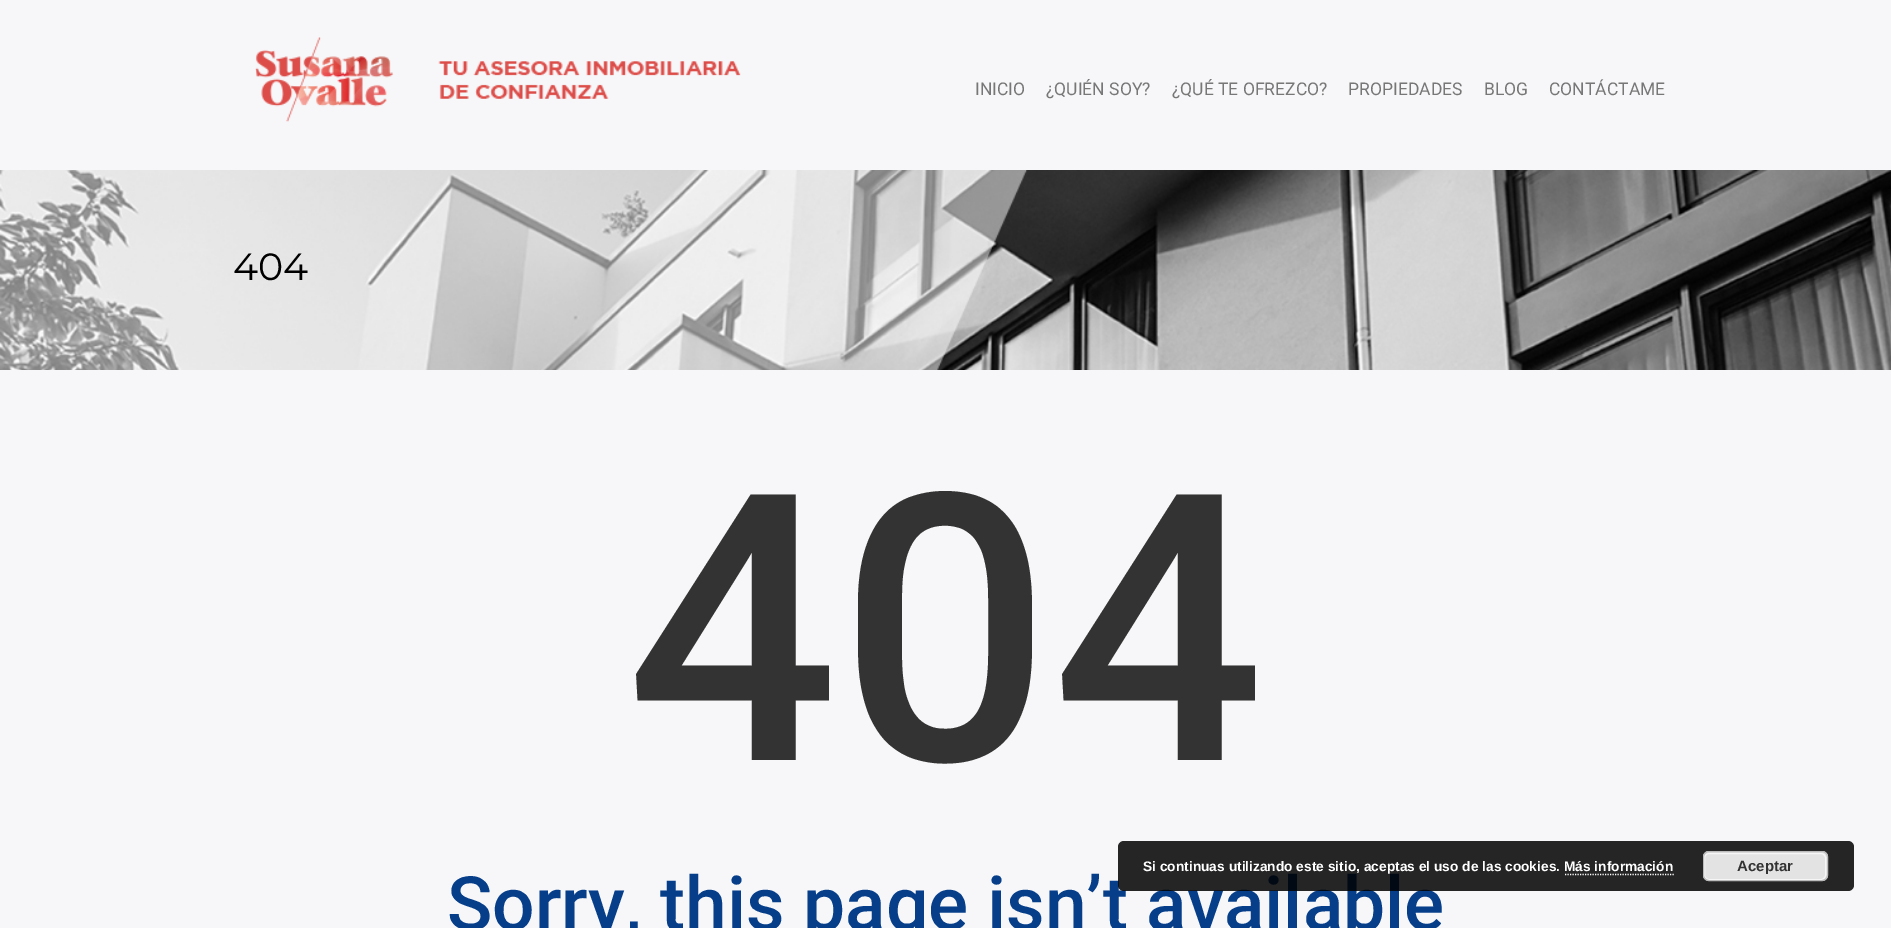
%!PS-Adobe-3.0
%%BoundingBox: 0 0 1891 928
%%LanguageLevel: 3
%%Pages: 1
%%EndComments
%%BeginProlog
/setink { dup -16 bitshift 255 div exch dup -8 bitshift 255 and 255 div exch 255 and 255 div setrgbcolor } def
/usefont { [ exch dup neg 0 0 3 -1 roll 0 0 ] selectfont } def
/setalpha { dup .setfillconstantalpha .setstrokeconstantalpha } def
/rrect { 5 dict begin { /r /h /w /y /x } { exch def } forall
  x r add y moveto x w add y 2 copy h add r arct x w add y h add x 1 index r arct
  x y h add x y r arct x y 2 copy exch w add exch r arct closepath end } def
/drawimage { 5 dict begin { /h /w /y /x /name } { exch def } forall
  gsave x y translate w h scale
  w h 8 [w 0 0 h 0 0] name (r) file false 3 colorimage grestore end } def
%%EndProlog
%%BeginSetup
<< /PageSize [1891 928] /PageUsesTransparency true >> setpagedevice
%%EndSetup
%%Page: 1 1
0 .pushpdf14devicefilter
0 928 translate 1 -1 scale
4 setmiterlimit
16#F7F7F9 setink
0 0 1891 928 rectfill
(img1.raw) 255 37 486 85 drawimage
/Roboto-Regular 17.5 usefont
16#777777 setink
[
    [(INICIO) 975 95]
    [(¿QUIÉN SOY?) 1046 95]
    [(¿QUÉ TE OFREZCO?) 1172 95]
    [(PROPIEDADES) 1348 95]
    [(BLOG) 1484 95]
    [(CONTÁCTAME) 1549 95]
] { aload pop moveto show } forall
(img2.raw) 0 170 1891 200 drawimage
/Montserrat-Thin 38 usefont
16#000000 setink
233 280 moveto (404) show
/Roboto-Medium 375 usefont
16#333333 setink
626 760 moveto (404) show
/Roboto-Medium 75 usefont
16#063E89 setink
447 930 moveto (Sorry, this page isn’t available) show
0.85 setalpha
16#000000 setink
1118 841 736 50 6 rrect fill
/LiberationSans-Bold 13.75 usefont
1 setalpha
16#FFFFFF setink
1143 871 moveto (Si continuas utilizando este sitio, aceptas el uso de las cookies. Más información) show
16#E3E3E3 setink
1703 851 125 30 6 rrect fill
16#F6F6F6 setink
1704.5 853.5 121 26 4.5 rrect stroke
16#BBBBBB setink
1703.5 851.5 124 29 5.5 rrect stroke
/LiberationSans-Bold 15 usefont
16#333333 setink
1737 871 moveto (Aceptar) show
16#FFFFFF setink
1.2 setlinewidth
[1.25 1.25] 0 setdash
1565 874.5 moveto 1674 874.5 lineto stroke
.poppdf14devicefilter showpage
%%EOF
